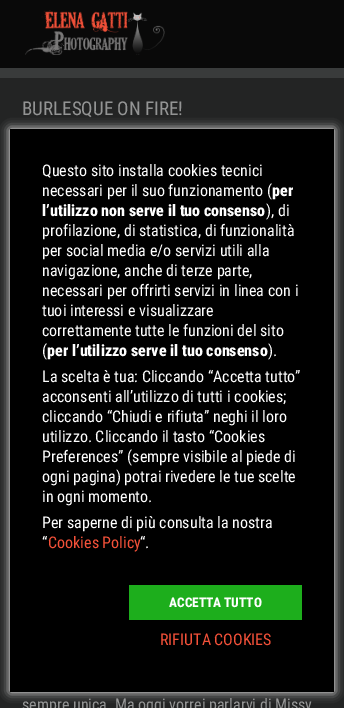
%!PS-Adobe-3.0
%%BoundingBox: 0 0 344 708
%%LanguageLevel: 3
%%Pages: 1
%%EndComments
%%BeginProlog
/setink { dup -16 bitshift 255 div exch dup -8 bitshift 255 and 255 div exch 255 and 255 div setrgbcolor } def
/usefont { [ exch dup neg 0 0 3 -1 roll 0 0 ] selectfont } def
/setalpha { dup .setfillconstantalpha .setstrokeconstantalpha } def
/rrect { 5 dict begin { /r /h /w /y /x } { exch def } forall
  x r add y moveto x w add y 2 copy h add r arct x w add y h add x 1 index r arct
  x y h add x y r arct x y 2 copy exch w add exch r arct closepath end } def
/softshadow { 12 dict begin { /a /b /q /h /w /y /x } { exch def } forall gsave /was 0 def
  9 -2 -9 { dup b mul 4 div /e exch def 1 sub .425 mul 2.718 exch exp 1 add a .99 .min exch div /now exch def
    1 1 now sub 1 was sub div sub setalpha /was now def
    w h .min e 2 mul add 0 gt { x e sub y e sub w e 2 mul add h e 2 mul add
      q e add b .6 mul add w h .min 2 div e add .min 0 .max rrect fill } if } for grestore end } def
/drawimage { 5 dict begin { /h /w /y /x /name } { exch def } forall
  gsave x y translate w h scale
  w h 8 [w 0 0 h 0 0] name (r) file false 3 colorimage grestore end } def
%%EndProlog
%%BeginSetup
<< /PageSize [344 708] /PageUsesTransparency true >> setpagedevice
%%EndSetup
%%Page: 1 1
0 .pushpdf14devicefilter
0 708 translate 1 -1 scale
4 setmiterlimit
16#393B3B setink
0 0 344 708 rectfill
16#090909 setink
0 0 344 68 rectfill
(img1.raw) 25 10 140 45 drawimage
16#232424 setink
0 78 344 630 rectfill
/RobotoCondensed-Regular 19 usefont
16#939494 setink
22 115 moveto (BURLESQUE ON FIRE!) show
/RobotoCondensed-Regular 16 usefont
22 710 moveto (sempre unica. Ma oggi vorrei parlarvi di Missy) show
16#FFFFFF setink
10 129 324 563 0 5 1 softshadow
16#000000 setink
10 129 324 563 rectfill
16#FFFFFF setink
42 176 moveto (Questo sito installa cookies tecnici) show
42 196 moveto (necessari per il suo funzionamento \() show
/RobotoCondensed-ExtraBold 16 usefont
272 196 moveto (per) show
42 216 moveto (l’utilizzo non serve il tuo consenso) show
/RobotoCondensed-Regular 16 usefont
[
    [(\), di) 266 216]
    [(profilazione, di statistica, di funzionalità) 42 236]
    [(per social media e/o servizi utili alla) 42 256]
    [(navigazione, anche di terze parte,) 42 276]
    [(necessari per offrirti servizi in linea con i) 42 296]
    [(tuoi interessi e visualizzare) 42 316]
    [(correttamente tutte le funzioni del sito) 42 336]
    [(\() 42 356]
] { aload pop moveto show } forall
/RobotoCondensed-ExtraBold 16 usefont
47 356 moveto (per l’utilizzo serve il tuo consenso) show
/RobotoCondensed-Regular 16 usefont
[
    [(\).) 268 356]
    [(La scelta è tua: Cliccando “Accetta tutto”) 42 382]
    [(acconsenti all’utilizzo di tutti i cookies;) 42 402]
    [(cliccando “Chiudi e rifiuta” neghi il loro) 42 422]
    [(utilizzo. Cliccando il tasto “Cookies) 42 442]
    [(Preferences” \(sempre visibile al piede di) 42 462]
    [(ogni pagina\) potrai rivedere le tue scelte) 42 482]
    [(in ogni momento.) 42 502]
    [(Per saperne di più consulta la nostra) 42 528]
    [(“) 42 548]
] { aload pop moveto show } forall
16#F45139 setink
48 548 moveto (Cookies Policy) show
16#FFFFFF setink
140 548 moveto (“.) show
16#1DAE1C setink
129 585 173 35 rectfill
/RobotoCondensed-ExtraBold 13.25 usefont
16#FFFFFF setink
169 607 moveto (ACCETTA TUTTO) show
/RobotoCondensed-Regular 16 usefont
16#F45139 setink
160 645 moveto (RIFIUTA COOKIES) show
.poppdf14devicefilter showpage
%%EOF
